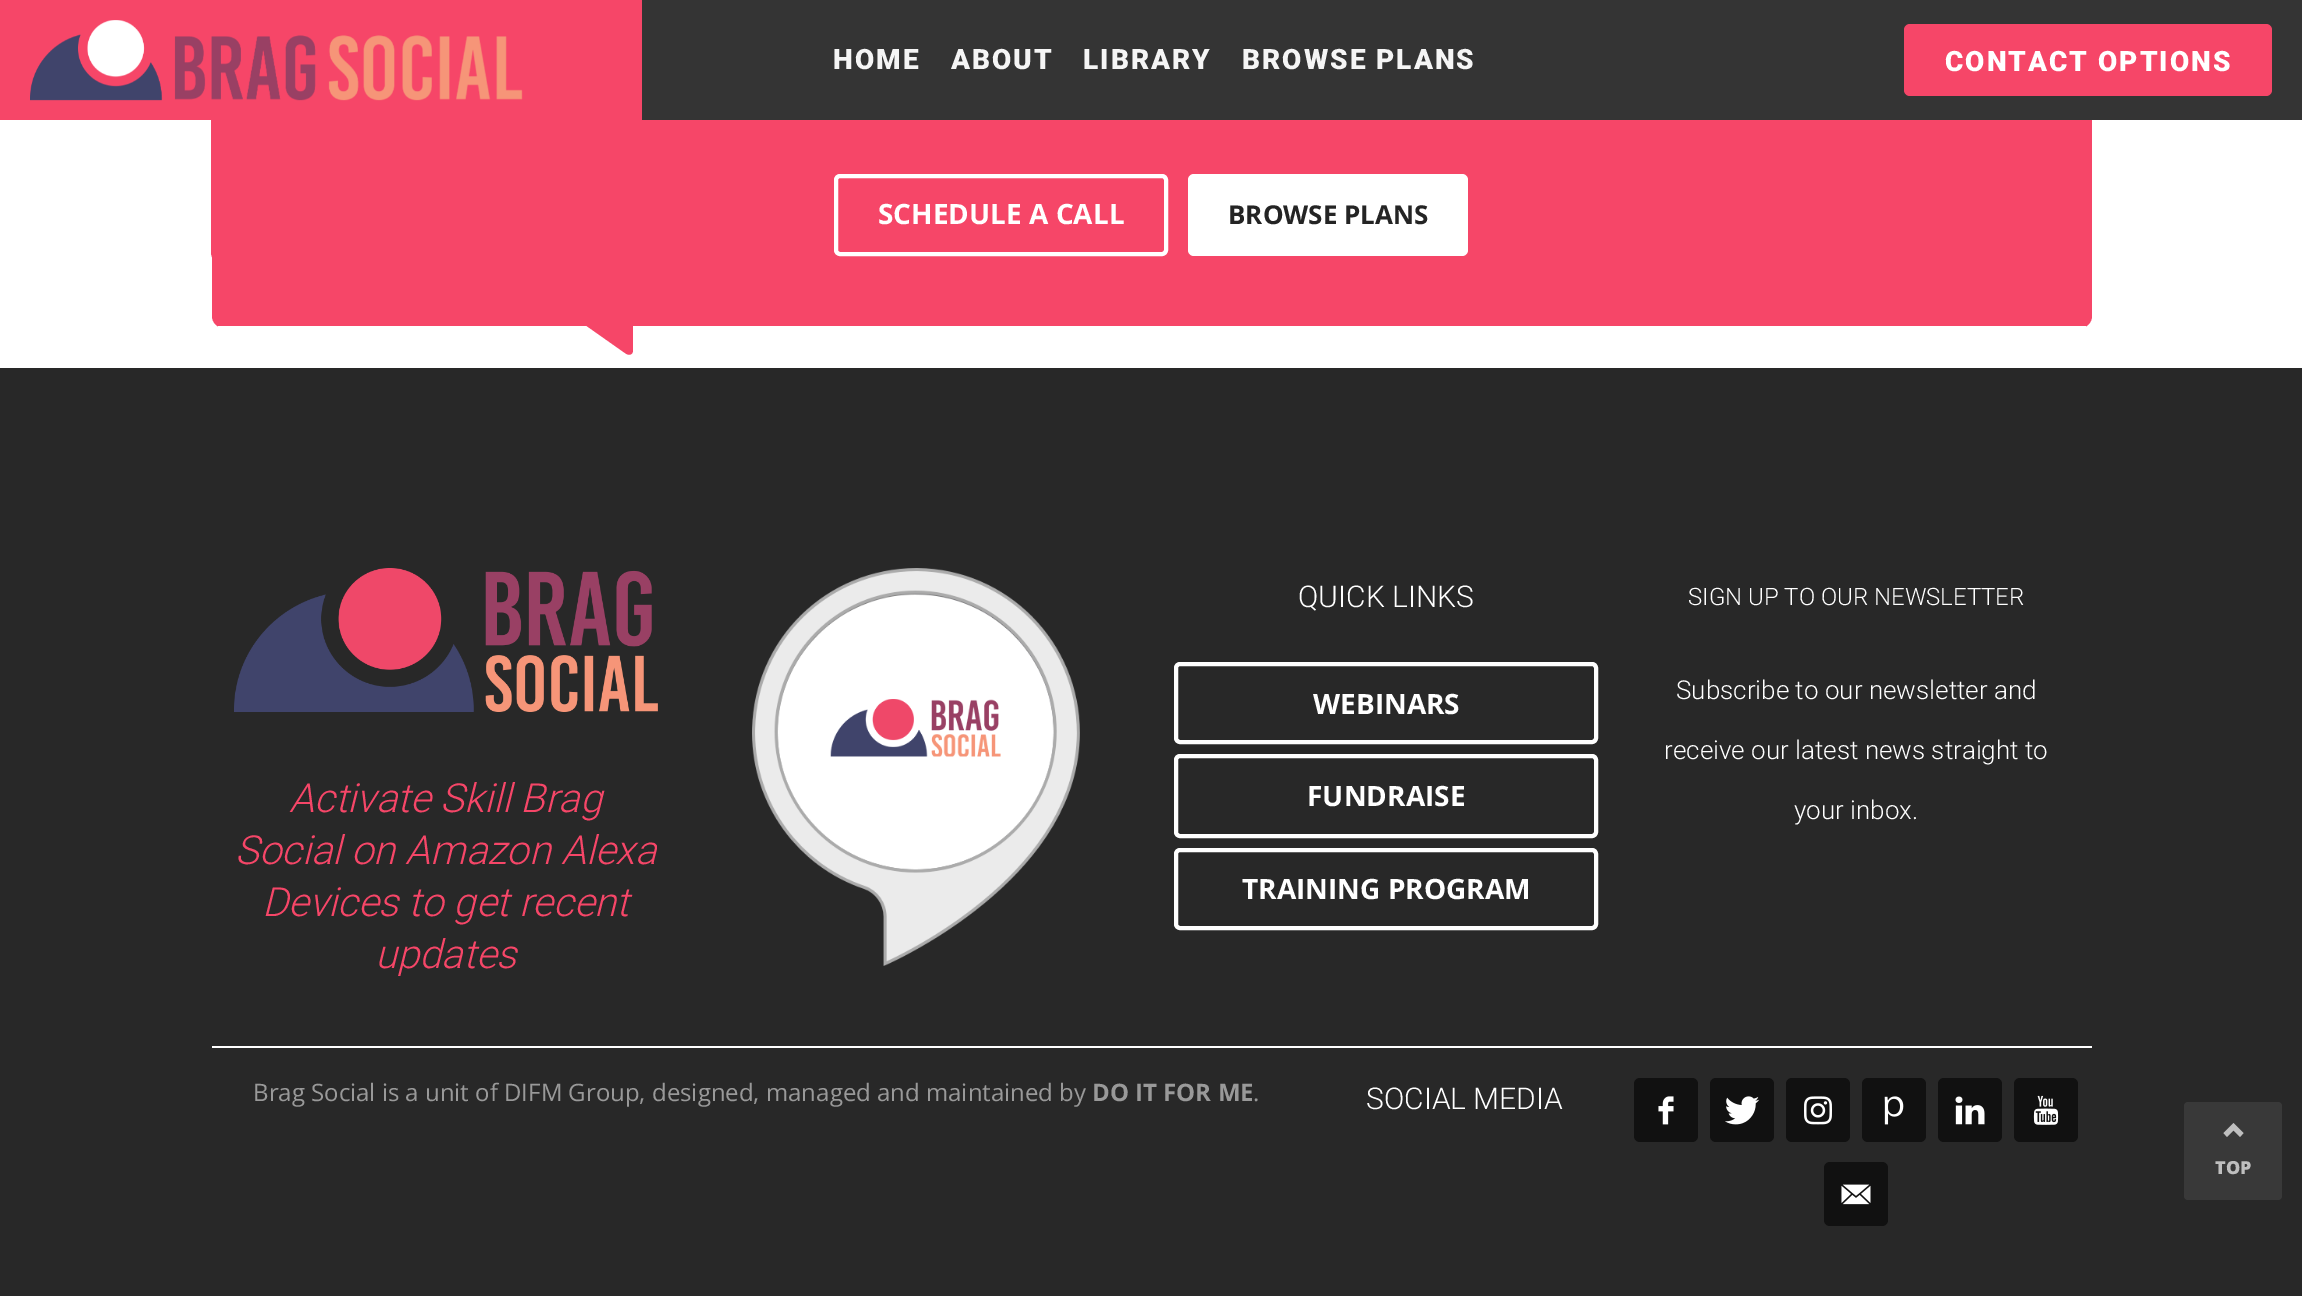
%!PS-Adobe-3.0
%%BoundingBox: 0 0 2302 1296
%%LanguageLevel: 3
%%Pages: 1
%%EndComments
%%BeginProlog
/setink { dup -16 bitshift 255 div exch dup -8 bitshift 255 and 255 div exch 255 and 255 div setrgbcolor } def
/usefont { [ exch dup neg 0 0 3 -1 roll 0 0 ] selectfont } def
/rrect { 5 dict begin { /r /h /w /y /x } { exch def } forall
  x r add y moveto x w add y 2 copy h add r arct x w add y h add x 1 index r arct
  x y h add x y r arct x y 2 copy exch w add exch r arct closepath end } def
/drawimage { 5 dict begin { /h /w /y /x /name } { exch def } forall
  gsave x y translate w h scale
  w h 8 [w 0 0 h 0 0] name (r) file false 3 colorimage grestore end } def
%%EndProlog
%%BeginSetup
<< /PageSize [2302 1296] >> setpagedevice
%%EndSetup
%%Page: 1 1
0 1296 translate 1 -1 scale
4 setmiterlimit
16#FFFFFF setink
0 0 2302 1296 rectfill
16#F64668 setink
212 -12 1880 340 12 rrect fill
16#FFFFFF setink
218 326 1868 2 rectfill
16#F64668 setink
581 258 moveto 625 289 lineto 629 292 633 298 633 302 curveto 633 350 lineto 633 355 629 356 625 353 curveto 581 322 lineto 577 319 573 313 573 308 curveto 573 260 lineto 573 256 577 255 581 258 curveto closepath fill
223 -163 moveto 2079 -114 lineto 2086 -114 2091 -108 2091 -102 curveto 2091 301 lineto 2091 308 2086 313 2079 313 curveto 223 264 lineto 216 264 211 259 211 252 curveto 211 -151 lineto 211 -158 216 -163 223 -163 curveto closepath fill
16#343434 setink
642 0 1660 120 rectfill
16#F64668 setink
0 0 211 120 rectfill
(img1.raw) 30 20 493 81 drawimage
/Roboto-Black 28 usefont
16#F5F5F5 setink
833 69 moveto 2 0 (HOME) ashow
951 69 moveto 2 0 (ABOUT) ashow
1083 69 moveto 2 0 (LIBRARY) ashow
1242 69 moveto 2 0 (BROWSE PLANS) ashow
16#F64668 setink
1904 24 368 72 6 rrect fill
16#FFFFFF setink
1945 71 moveto 2 0 (CONTACT OPTIONS) ashow
4 setlinewidth
836 176 330 78 4 rrect stroke
/OpenSans-Bold 28 usefont
878 224 moveto (SCHEDULE A CALL) show
1188 174 280 82 6 rrect fill
/OpenSans-Bold 26 usefont
16#242424 setink
1228 224 moveto (BROWSE PLANS) show
16#282828 setink
0 368 2302 928 rectfill
(img2.raw) 752 568 328 398 drawimage
/Roboto-Light 30 usefont
16#FFFFFF setink
1298 607 moveto (QUICK LINKS) show
1176 664 420 78 4 rrect stroke
/OpenSans-Bold 28 usefont
1313 714 moveto (WEBINARS) show
1176 756 420 80 4 rrect stroke
1307 806 moveto (FUNDRAISE) show
1176 850 420 78 4 rrect stroke
1242 899 moveto (TRAINING PROGRAM) show
/Roboto-Light 24 usefont
1688 605 moveto (SIGN UP TO OUR NEWSLETTER) show
/Roboto-Light 26 usefont
[
    [(Subscribe to our newsletter and) 1676 699]
    [(receive our latest news straight to) 1664 759]
    [(your inbox.) 1794 819]
] { aload pop moveto show } forall
(img3.raw) 234 568 424 144 drawimage
/Roboto-LightItalic 40 usefont
16#F64668 setink
[
    [(Activate Skill Brag) 289 812]
    [(Social on Amazon Alexa) 235 864]
    [(Devices to get recent) 262 916]
    [(updates) 375 968]
] { aload pop moveto show } forall
16#FFFFFF setink
212 1046 1880 2 rectfill
/OpenSans-Regular 24 usefont
16#999999 setink
253 1101 moveto (Brag Social is a unit of DIFM Group, designed, managed and maintained by) show
/OpenSans-Bold 24 usefont
1092 1101 moveto (DO IT FOR ME) show
/OpenSans-Regular 24 usefont
1253 1101 moveto (.) show
/Roboto-Light 30 usefont
16#FFFFFF setink
1366 1109 moveto (SOCIAL MEDIA) show
16#111111 setink
1634 1078 64 64 6 rrect fill
(img4.raw) 1658 1096 16 29 drawimage
1710 1078 64 64 6 rrect fill
(img5.raw) 1725 1096 35 29 drawimage
1786 1078 64 64 6 rrect fill
(img6.raw) 1804 1096 28 29 drawimage
1862 1078 64 64 6 rrect fill
(img7.raw) 1884 1096 20 29 drawimage
1938 1078 64 64 6 rrect fill
(img8.raw) 1955 1096 30 29 drawimage
2014 1078 64 64 6 rrect fill
(img9.raw) 2033 1095 26 30 drawimage
1824 1162 64 64 6 rrect fill
(img10.raw) 1841 1184 30 21 drawimage
16#393939 setink
2184 1102 98 98 4 rrect fill
16#BFBFBF setink
2233.5 1123 moveto 2243.5 1133 lineto 2240 1137 lineto 2233.5 1130.5 lineto 2227 1137 lineto 2223.5 1133 lineto closepath fill
/OpenSans-ExtraBold 18 usefont
2215 1174 moveto (TOP) show
showpage
%%EOF
